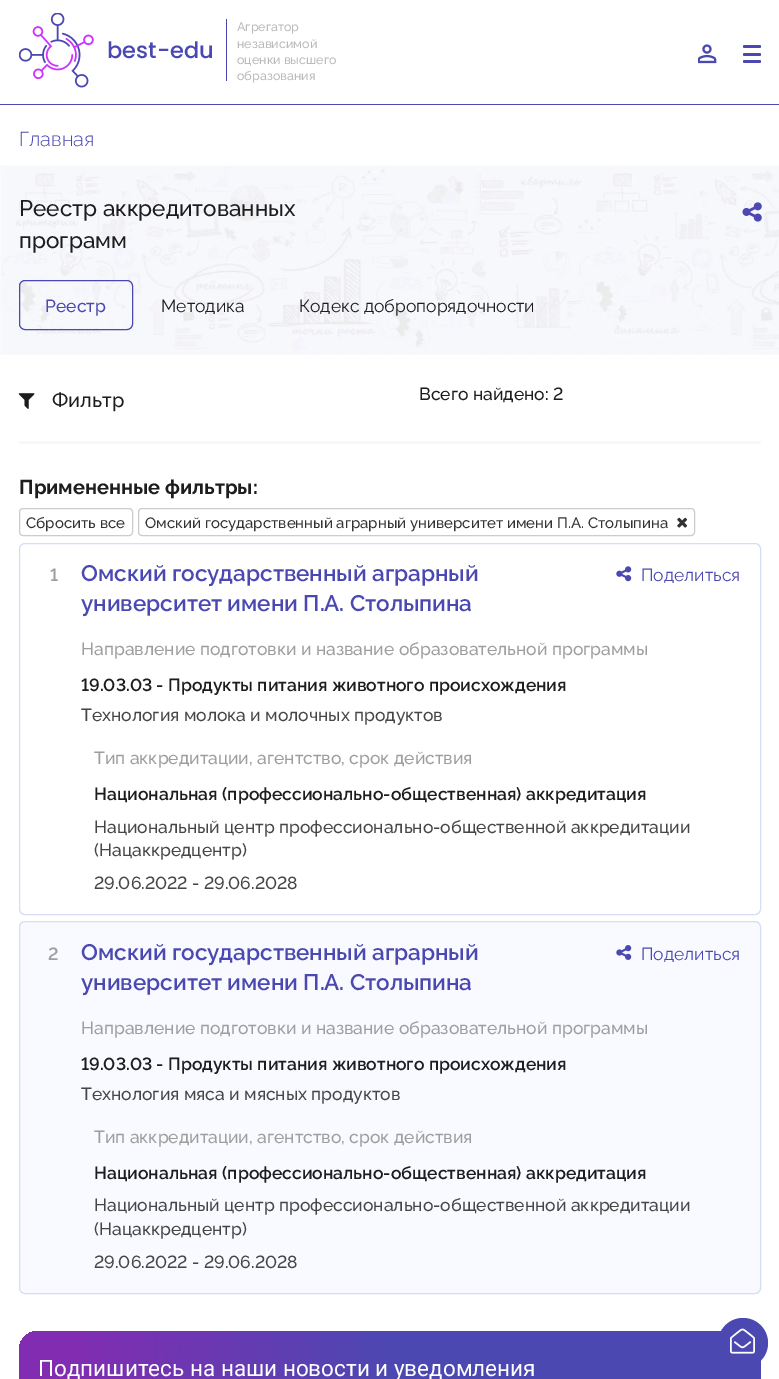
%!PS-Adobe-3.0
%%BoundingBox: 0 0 779 1379
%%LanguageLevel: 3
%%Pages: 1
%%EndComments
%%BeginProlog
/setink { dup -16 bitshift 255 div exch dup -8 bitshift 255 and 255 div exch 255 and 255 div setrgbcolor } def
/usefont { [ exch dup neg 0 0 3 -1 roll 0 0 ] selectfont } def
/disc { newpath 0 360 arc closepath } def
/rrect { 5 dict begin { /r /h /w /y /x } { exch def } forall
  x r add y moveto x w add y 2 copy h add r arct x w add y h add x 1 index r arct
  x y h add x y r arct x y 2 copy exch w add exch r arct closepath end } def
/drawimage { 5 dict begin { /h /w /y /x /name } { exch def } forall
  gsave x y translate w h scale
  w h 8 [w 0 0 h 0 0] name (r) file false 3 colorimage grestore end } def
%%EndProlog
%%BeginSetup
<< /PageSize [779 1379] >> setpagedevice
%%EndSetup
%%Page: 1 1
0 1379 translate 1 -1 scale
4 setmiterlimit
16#FFFFFF setink
0 0 779 1379 rectfill
(img1.raw) 19 13 75 75 drawimage
/Poppins-Medium 22.5 usefont
16#4B49B1 setink
107 58 moveto (best-edu) show
226 19 1 62 rectfill
/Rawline-Medium 12.5 usefont
16#BBBBBB setink
[
    [(Агрегатор) 237 31]
    [(независимой) 237 48]
    [(оценки высшего) 237 64]
    [(образования) 237 80]
] { aload pop moveto show } forall
(img2.raw) 698 44 19 20 drawimage
16#4B49B1 setink
743 45 18 3 1.5 rrect fill
743 53 18 3 1.5 rrect fill
743 60 18 3 1.5 rrect fill
0 104 779 1 rectfill
/Rawline-Light 20 usefont
19 146 moveto (Главная) show
(img3.raw) 0 165 779 190 drawimage
/Rawline-Medium 22.5 usefont
16#1D1D1F setink
19 216 moveto (Реестр аккредитованных) show
19 248 moveto (программ) show
(img4.raw) 742 202 20 20 drawimage
16#4B49B1 setink
19.5 280.5 113 49 5.5 rrect stroke
/Rawline-Medium 17.5 usefont
45 312 moveto (Реестр) show
/Rawline-Regular 17.5 usefont
16#1D1D1F setink
161 312 moveto (Методика) show
299 312 moveto (Кодекс добропорядочности) show
16#F7F7FE setink
19 441 742 3 rectfill
(img5.raw) 18 393 17 16 drawimage
/Rawline-Medium 20 usefont
16#1D1D1F setink
52 407 moveto (Фильтр) show
/Rawline-Medium 17.5 usefont
419 400 moveto (Всего найдено: 2) show
/Rawline-Bold 20 usefont
19 494 moveto (Примененные фильтры:) show
16#CCCCCC setink
19.5 508.5 113 27 3.5 rrect stroke
/Rawline-Medium 15 usefont
16#333333 setink
26 528 moveto (Сбросить все) show
16#CCCCCC setink
138.5 508.5 556 27 3.5 rrect stroke
16#333333 setink
145 528 moveto (Омский государственный аграрный университет имени П.А. Столыпина) show
(img6.raw) 677 517 11 11 drawimage
16#D5DDF8 setink
19.5 543.5 741 371 5.5 rrect stroke
/Rawline-SemiBold 17.5 usefont
16#9E9E9E setink
50 581 moveto (1) show
/Rawline-SemiBold 22.5 usefont
16#4B49B1 setink
81 581 moveto (Омский государственный аграрный) show
81 611 moveto (университет имени П.А. Столыпина) show
(img7.raw) 616 566 16 16 drawimage
/Rawline-Regular 17.5 usefont
641 581 moveto (Поделиться) show
/Rawline-Medium 17.5 usefont
16#9E9E9E setink
81 655 moveto (Направление подготовки и название образовательной программы) show
/Rawline-SemiBold 17.5 usefont
16#1D1D1F setink
81 691 moveto (19.03.03 - Продукты питания животного происхождения) show
/Rawline-Medium 17.5 usefont
16#464646 setink
81 721 moveto (Технология молока и молочных продуктов) show
16#9E9E9E setink
94 764 moveto (Тип аккредитации, агентство, срок действия) show
/Rawline-SemiBold 17.5 usefont
16#1D1D1F setink
94 800 moveto (Национальная \(профессионально-общественная\) аккредитация) show
/Rawline-Medium 17.5 usefont
16#464646 setink
[
    [(Национальный центр профессионально-общественной аккредитации) 94 833]
    [(\(Нацаккредцентр\)) 94 856]
    [(29.06.2022 - 29.06.2028) 94 889]
] { aload pop moveto show } forall
16#F9FAFF setink
19.5 921.5 741 372 5.5 rrect gsave fill grestore
16#D5DDF8 setink
stroke
/Rawline-SemiBold 17.5 usefont
16#9E9E9E setink
48 960 moveto (2) show
/Rawline-SemiBold 22.5 usefont
16#4B49B1 setink
81 960 moveto (Омский государственный аграрный) show
81 990 moveto (университет имени П.А. Столыпина) show
(img8.raw) 616 945 16 15 drawimage
/Rawline-Regular 17.5 usefont
641 960 moveto (Поделиться) show
/Rawline-Medium 17.5 usefont
16#9E9E9E setink
81 1034 moveto (Направление подготовки и название образовательной программы) show
/Rawline-SemiBold 17.5 usefont
16#1D1D1F setink
81 1070 moveto (19.03.03 - Продукты питания животного происхождения) show
/Rawline-Medium 17.5 usefont
16#464646 setink
81 1100 moveto (Технология мяса и мясных продуктов) show
16#9E9E9E setink
94 1143 moveto (Тип аккредитации, агентство, срок действия) show
/Rawline-SemiBold 17.5 usefont
16#1D1D1F setink
94 1179 moveto (Национальная \(профессионально-общественная\) аккредитация) show
/Rawline-Medium 17.5 usefont
16#464646 setink
[
    [(Национальный центр профессионально-общественной аккредитации) 94 1211]
    [(\(Нацаккредцентр\)) 94 1235]
    [(29.06.2022 - 29.06.2028) 94 1268]
] { aload pop moveto show } forall
gsave 19 1331 742 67 19 rrect clip newpath
<< /ShadingType 2 /ColorSpace /DeviceRGB /Coords [14 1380 766 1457] /Extend [true true] /Function << /FunctionType 3 /Domain [0 1] /Functions [<< /FunctionType 2 /Domain [0 1] /C0 [0.51 0.176 0.694] /C1 [0.51 0.176 0.694] /N 1 >> << /FunctionType 2 /Domain [0 1] /C0 [0.51 0.176 0.694] /C1 [0.294 0.286 0.694] /N 1 >> << /FunctionType 2 /Domain [0 1] /C0 [0.294 0.286 0.694] /C1 [0.294 0.286 0.694] /N 1 >>] /Bounds [0.07 0.51] /Encode [0 1 0 1 0 1] >> >> shfill grestore
16#4B49B1 setink
743 1343 25 disc fill
(img9.raw) 730 1328 25 26 drawimage
/Roboto-Regular 22.5 usefont
16#FFFFFF setink
38 1376 moveto (Подпишитесь на наши новости и уведомления) show
showpage
%%EOF
